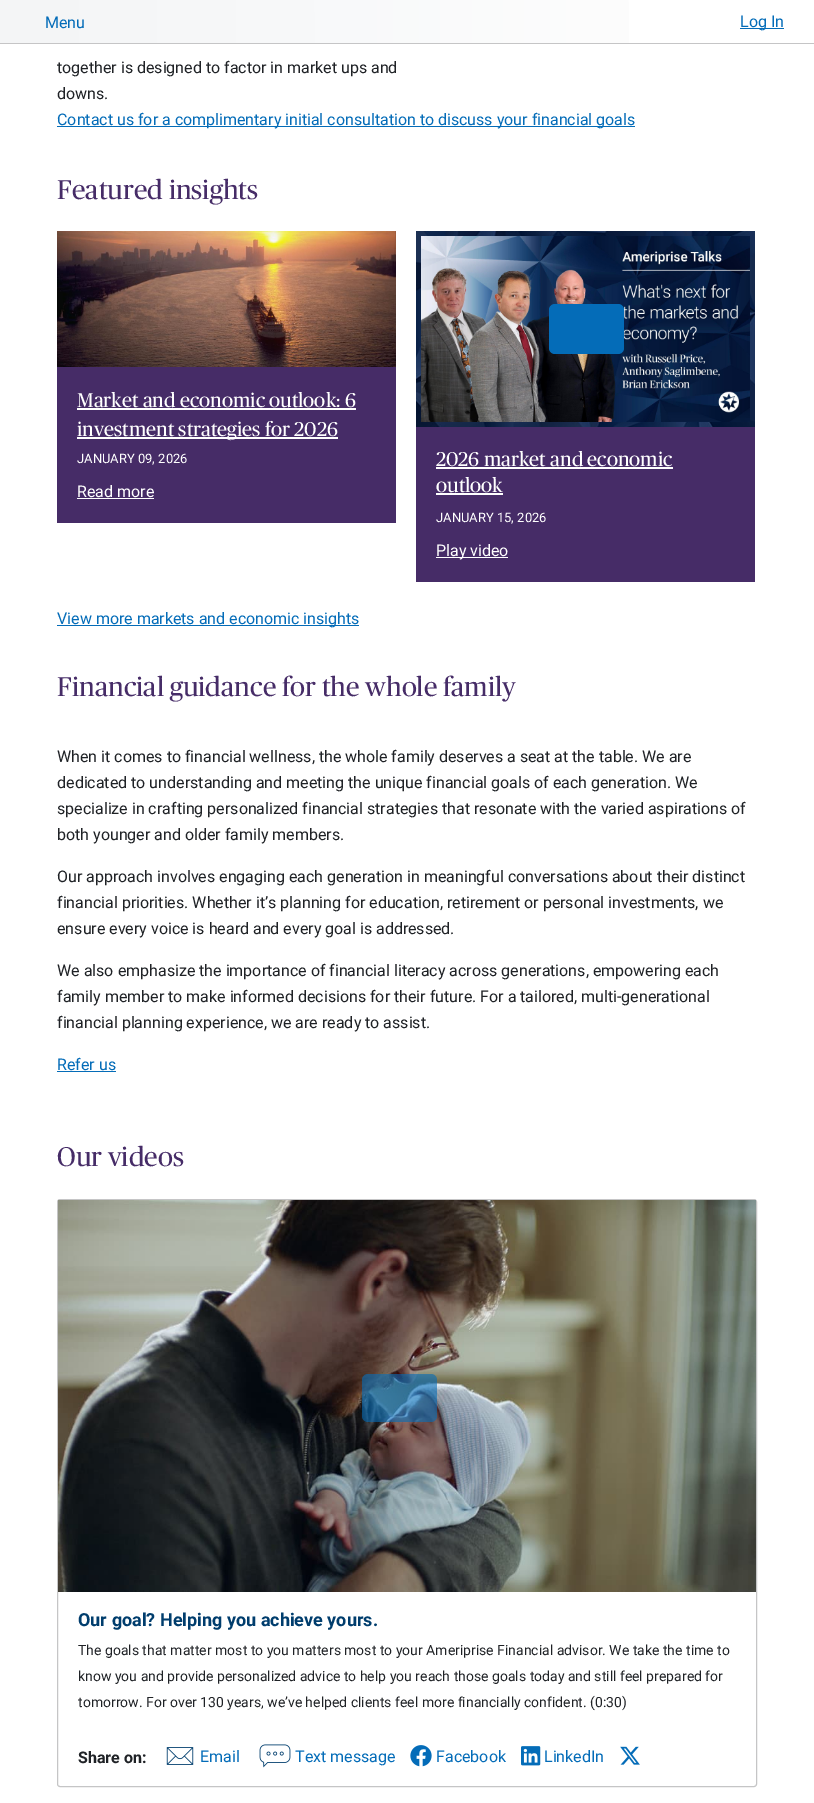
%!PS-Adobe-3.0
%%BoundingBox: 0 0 814 1803
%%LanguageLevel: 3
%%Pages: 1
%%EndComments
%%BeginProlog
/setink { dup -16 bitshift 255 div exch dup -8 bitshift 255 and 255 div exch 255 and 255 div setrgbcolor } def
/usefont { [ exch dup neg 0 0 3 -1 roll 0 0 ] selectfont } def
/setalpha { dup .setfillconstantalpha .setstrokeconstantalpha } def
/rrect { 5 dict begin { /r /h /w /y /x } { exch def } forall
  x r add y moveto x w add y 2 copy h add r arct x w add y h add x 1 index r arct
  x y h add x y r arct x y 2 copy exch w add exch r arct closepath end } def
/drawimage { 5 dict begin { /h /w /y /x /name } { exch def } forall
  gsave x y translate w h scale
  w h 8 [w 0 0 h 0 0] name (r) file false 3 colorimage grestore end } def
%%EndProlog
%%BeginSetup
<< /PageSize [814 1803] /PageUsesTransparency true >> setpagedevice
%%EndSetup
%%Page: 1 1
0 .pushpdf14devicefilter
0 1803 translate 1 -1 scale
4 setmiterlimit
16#FFFFFF setink
0 0 814 1803 rectfill
gsave 0 0 moveto 629 0 lineto 629 43 lineto 0 43 lineto closepath clip newpath
<< /ShadingType 2 /ColorSpace /DeviceRGB /Coords [0 22 814 21] /Extend [true true] /Function << /FunctionType 2 /Domain [0 1] /C0 [0.957 0.961 0.965] /C1 [1 1 1] /N 1 >> >> shfill grestore
16#C5C5C6 setink
0 43 814 1 rectfill
/Roboto-Regular 16 usefont
16#046CB8 setink
45 28 moveto (Menu) show
740 28 44 1 rectfill
740 27 moveto (Log In) show
16#1F2226 setink
57 73 moveto (together is designed to factor in market ups and) show
57 99 moveto (downs.) show
16#046CB8 setink
57 126 578 1 rectfill
57 125 moveto (Contact us for a complimentary initial consultation to discuss your financial goals) show
/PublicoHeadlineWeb-Regular 27 usefont
16#462C67 setink
57 199 moveto (Featured insights) show
(img1.raw) 57 231 339 136 drawimage
57 367 339 156 rectfill
/PublicoHeadlineWeb-Regular 20 usefont
16#FFFFFF setink
77 407 moveto (Market and economic outlook: 6) show
77 408 279 2 rectfill
77 437 261 2 rectfill
77 436 moveto (investment strategies for 2026) show
/Roboto-Regular 13 usefont
77 463 moveto (JANUARY 09, 2026) show
/Roboto-Regular 16 usefont
77 497 moveto (Read more) show
77 498 77 1 rectfill
(img2.raw) 416 231 339 196 drawimage
(img3.raw) 421 236 329 186 drawimage
16#046CB8 setink
549 304 75 50 6 rrect fill
16#462C67 setink
416 427 339 155 rectfill
/PublicoHeadlineWeb-Regular 20 usefont
16#FFFFFF setink
436 466 moveto (2026 market and economic) show
436 467 237 2 rectfill
436 492 moveto (outlook) show
436 493 67 2 rectfill
/Roboto-Regular 13 usefont
436 522 moveto (JANUARY 15, 2026) show
436 557 72 1 rectfill
/Roboto-Regular 16 usefont
436 556 moveto (Play video) show
16#046CB8 setink
57 625 302 1 rectfill
57 624 moveto (View more markets and economic insights) show
/PublicoHeadlineWeb-Regular 27 usefont
16#462C67 setink
57 696 moveto (Financial guidance for the whole family) show
/Roboto-Regular 16 usefont
16#1F2226 setink
[
    [(When it comes to financial wellness, the whole family deserves a seat at the table. We are) 57 762]
    [(dedicated to understanding and meeting the unique financial goals of each generation. We) 57 788]
    [(specialize in crafting personalized financial strategies that resonate with the varied aspirations of) 57 814]
    [(both younger and older family members.) 57 840]
    [(Our approach involves engaging each generation in meaningful conversations about their distinct) 57 882]
    [(financial priorities. Whether it’s planning for education, retirement or personal investments, we) 57 908]
    [(ensure every voice is heard and every goal is addressed.) 57 934]
    [(We also emphasize the importance of financial literacy across generations, empowering each) 57 976]
    [(family member to make informed decisions for their future. For a tailored, multi-generational) 57 1002]
    [(financial planning experience, we are ready to assist.) 57 1028]
] { aload pop moveto show } forall
16#046CB8 setink
57 1070 moveto (Refer us) show
57 1071 59 1 rectfill
/PublicoHeadlineWeb-Regular 27 usefont
16#462C67 setink
57 1166 moveto (Our videos) show
16#C5C5C6 setink
57.5 1199.5 699 587 2.5 rrect stroke
(img4.raw) 58 1200 698 392 drawimage
0.6 setalpha
16#046CB8 setink
362 1374 75 48 6 rrect fill
/Roboto-Bold 18 usefont
1 setalpha
16#003D6D setink
78 1626 moveto (Our goal? Helping you achieve yours.) show
/Roboto-Regular 14 usefont
16#1F2226 setink
[
    [(The goals that matter most to you matters most to your Ameriprise Financial advisor. We take the time to) 78 1655]
    [(know you and provide personalized advice to help you reach those goals today and still feel prepared for) 78 1681]
    [(tomorrow. For over 130 years, we’ve helped clients feel more financially confident. \(0:30\)) 78 1707]
] { aload pop moveto show } forall
/Roboto-Bold 16 usefont
78 1763 moveto (Share on:) show
(img5.raw) 166 1747 28 18 drawimage
/Roboto-Regular 16 usefont
16#046CB8 setink
200 1762 moveto (Email) show
(img6.raw) 259 1744 32 24 drawimage
295 1762 moveto (Text message) show
(img7.raw) 410 1745 22 22 drawimage
436 1762 moveto (Facebook) show
(img8.raw) 521 1746 20 20 drawimage
544 1762 moveto (LinkedIn) show
(img9.raw) 620 1746 20 19 drawimage
.poppdf14devicefilter showpage
%%EOF
